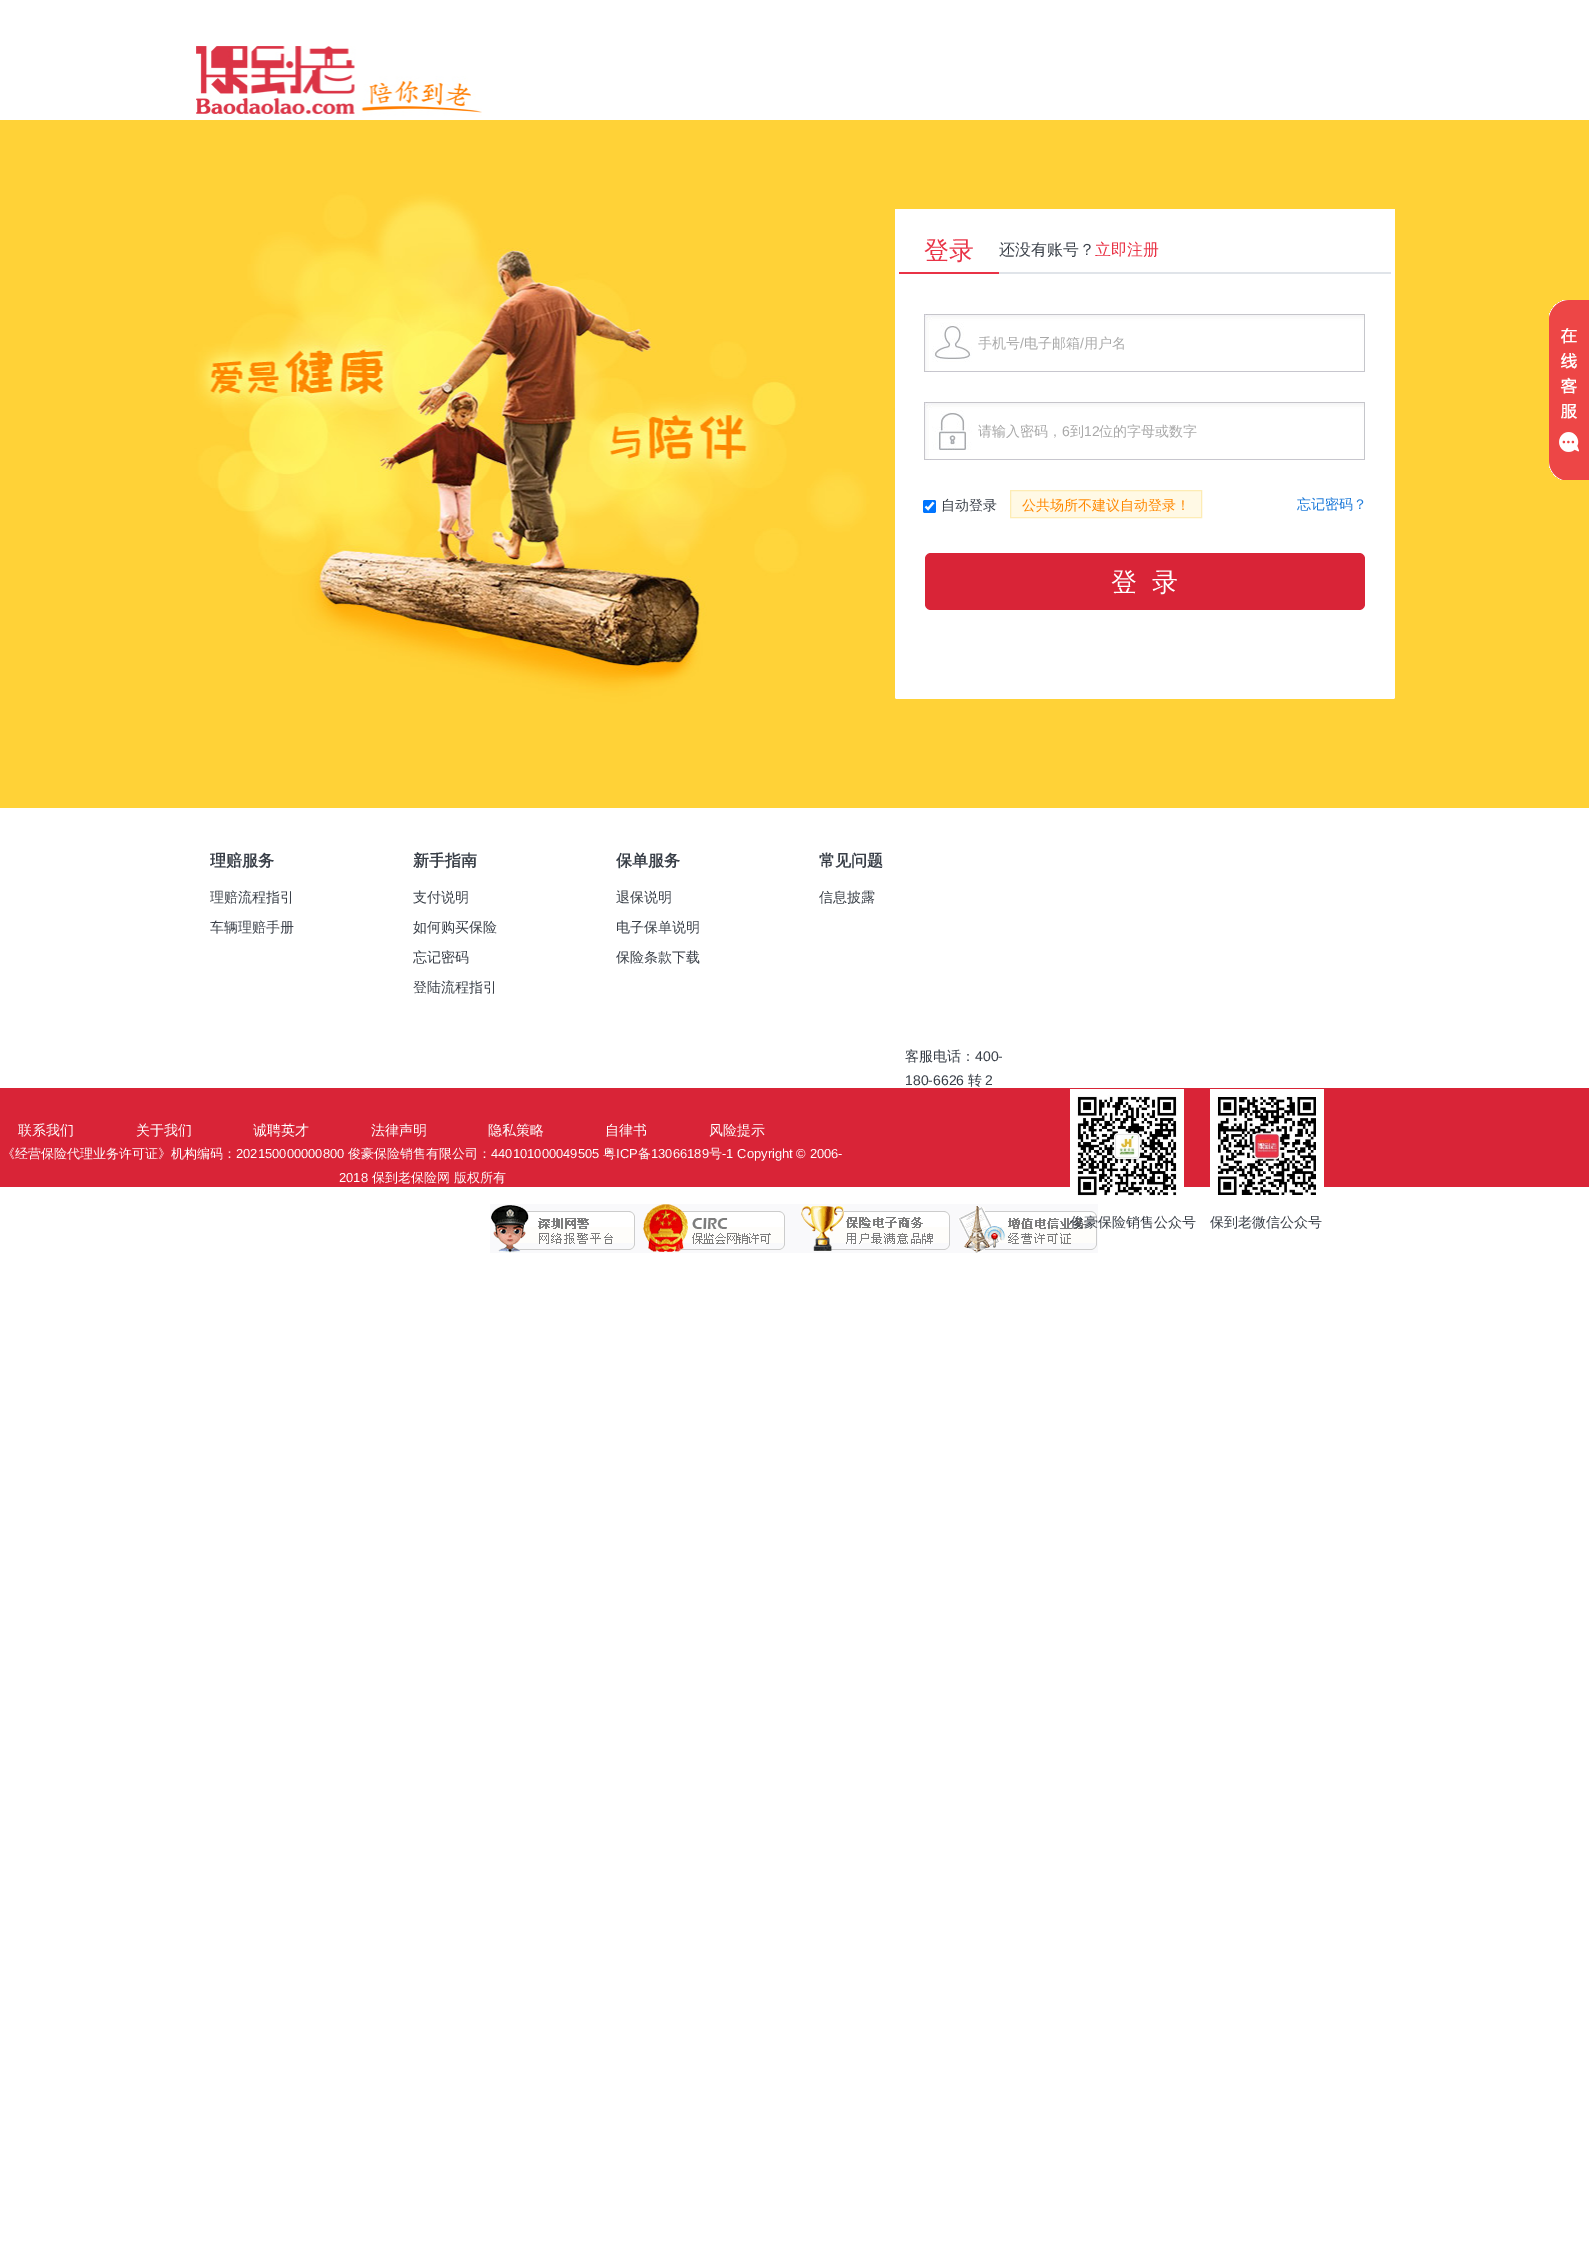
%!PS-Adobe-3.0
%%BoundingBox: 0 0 1589 2252
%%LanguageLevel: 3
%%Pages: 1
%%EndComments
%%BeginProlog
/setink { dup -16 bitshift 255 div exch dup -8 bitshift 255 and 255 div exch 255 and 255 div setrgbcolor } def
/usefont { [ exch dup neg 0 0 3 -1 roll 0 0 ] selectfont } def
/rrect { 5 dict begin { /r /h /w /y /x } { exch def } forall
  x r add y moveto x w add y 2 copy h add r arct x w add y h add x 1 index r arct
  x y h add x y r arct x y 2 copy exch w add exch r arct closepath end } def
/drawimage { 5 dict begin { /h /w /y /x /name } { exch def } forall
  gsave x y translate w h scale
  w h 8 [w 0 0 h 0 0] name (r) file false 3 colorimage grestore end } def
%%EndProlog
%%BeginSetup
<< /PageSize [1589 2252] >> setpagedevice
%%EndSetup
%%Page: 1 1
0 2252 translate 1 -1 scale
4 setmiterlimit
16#FFFFFF setink
0 0 1589 2252 rectfill
(img1.raw) 196 46 286 70 drawimage
(img2.raw) 0 120 1589 688 drawimage
895 209 500 490 2 rrect fill
[
    [895 209 500 2 16#FFFFFF]
    [999 272 392 2 16#E0E4E9]
    [899 272 100 2 16#E93346]
] { aload pop setink rectfill } forall
/WenQuanYiZenHei-Medium 25 usefont
924 259 moveto (登录) show
/WenQuanYiZenHei-Medium 16 usefont
16#393F48 setink
999 255 moveto (还没有账号？) show
16#E93346 setink
1095 255 moveto (立即注册) show
(img3.raw) 924 314 441 58 drawimage
/WenQuanYiZenHei-Medium 14 usefont
16#A9A9A9 setink
978 348 moveto (手机号) show
/LiberationSans-Regular 14 usefont
1020 348 moveto (/) show
/WenQuanYiZenHei-Medium 14 usefont
1024 348 moveto (电子邮箱) show
/LiberationSans-Regular 14 usefont
1080 348 moveto (/) show
/WenQuanYiZenHei-Medium 14 usefont
1084 348 moveto (用户名) show
(img4.raw) 924 402 441 58 drawimage
978 436 moveto (请输入密码，) show
/LiberationSans-Regular 14 usefont
1062 436 moveto (6) show
/WenQuanYiZenHei-Medium 14 usefont
1070 436 moveto (到) show
/LiberationSans-Regular 14 usefont
1084 436 moveto (12) show
/WenQuanYiZenHei-Medium 14 usefont
1099 436 moveto (位的字母或数字) show
16#0075FF setink
923 500 13 13 2 rrect fill
16#FFFFFF setink
2.1 setlinewidth
925.5 506.5 moveto 928 509 lineto 933.5 502.5 lineto stroke
16#393F48 setink
941 510 moveto (自动登录) show
16#FFF9E5 setink
1010.5 490.5 moveto 1201.5 490.5 lineto 1201.5 517.5 lineto 1010.5 517.5 lineto closepath gsave fill grestore
16#FDECB4 setink
1 setlinewidth
stroke
16#FF8800 setink
1022 510 moveto (公共场所不建议自动登录！) show
16#1D7AD9 setink
1297 509 moveto (忘记密码？) show
16#D92437 setink
925 553 440 57 6 rrect fill
/WenQuanYiZenHei-Medium 26 usefont
16#FFFFFF setink
1111 591 moveto (登) show
1152 591 moveto (录) show
(img5.raw) 1549 300 40 180 drawimage
/WenQuanYiZenHei-Bold 16 usefont
16#393F48 setink
210 866 moveto (理赔服务) show
/WenQuanYiZenHei-Medium 14 usefont
210 902 moveto (理赔流程指引) show
210 932 moveto (车辆理赔手册) show
/WenQuanYiZenHei-Bold 16 usefont
413 866 moveto (新手指南) show
/WenQuanYiZenHei-Medium 14 usefont
[
    [(支付说明) 413 902]
    [(如何购买保险) 413 932]
    [(忘记密码) 413 962]
    [(登陆流程指引) 413 992]
] { aload pop moveto show } forall
/WenQuanYiZenHei-Bold 16 usefont
616 866 moveto (保单服务) show
/WenQuanYiZenHei-Medium 14 usefont
[
    [(退保说明) 616 902]
    [(电子保单说明) 616 932]
    [(保险条款下载) 616 962]
] { aload pop moveto show } forall
/WenQuanYiZenHei-Bold 16 usefont
819 866 moveto (常见问题) show
/WenQuanYiZenHei-Medium 14 usefont
819 902 moveto (信息披露) show
905 1061 moveto (客服电话：) show
/LiberationSans-Regular 14 usefont
975 1061 moveto (400-) show
905 1085 moveto (180-6626) show
/WenQuanYiZenHei-Medium 14 usefont
968 1085 moveto (转) show
/LiberationSans-Regular 14 usefont
985 1085 moveto (2) show
16#D92437 setink
0 1088 1589 99 rectfill
(img6.raw) 1070 1089 114 107 drawimage
(img8.raw) 490 1204 608 49 drawimage
/WenQuanYiZenHei-Medium 14 usefont
16#393F48 setink
1070 1227 moveto (俊豪保险销售公众号) show
(img7.raw) 1210 1089 114 106 drawimage
1210 1227 moveto (保到老微信公众号) show
16#FFFFFF setink
[
    [(联系我们) 18 1135]
    [(关于我们) 136 1135]
    [(诚聘英才) 253 1135]
    [(法律声明) 371 1135]
    [(隐私策略) 488 1135]
    [(自律书) 605 1135]
    [(风险提示) 709 1135]
] { aload pop moveto show } forall
/WenQuanYiZenHei-Medium 13 usefont
2 1158 moveto (《经营保险代理业务许可证》机构编码：) show
/LiberationSans-Regular 13 usefont
236 1158 moveto (202150000000800) show
/WenQuanYiZenHei-Medium 13 usefont
348 1158 moveto (俊豪保险销售有限公司：) show
/LiberationSans-Regular 13 usefont
491 1158 moveto (440101000049505) show
/WenQuanYiZenHei-Medium 13 usefont
603 1158 moveto (粤) show
/LiberationSans-Regular 13 usefont
616 1158 moveto (ICP) show
/WenQuanYiZenHei-Medium 13 usefont
638 1158 moveto (备) show
/LiberationSans-Regular 13 usefont
651 1158 moveto (13066189) show
/WenQuanYiZenHei-Medium 13 usefont
709 1158 moveto (号) show
/LiberationSans-Regular 13 usefont
722 1158 moveto (-1 Copyright © 2006-) show
339 1182 moveto (2018) show
/WenQuanYiZenHei-Medium 13 usefont
372 1182 moveto (保到老保险网 版权所有) show
showpage
%%EOF
